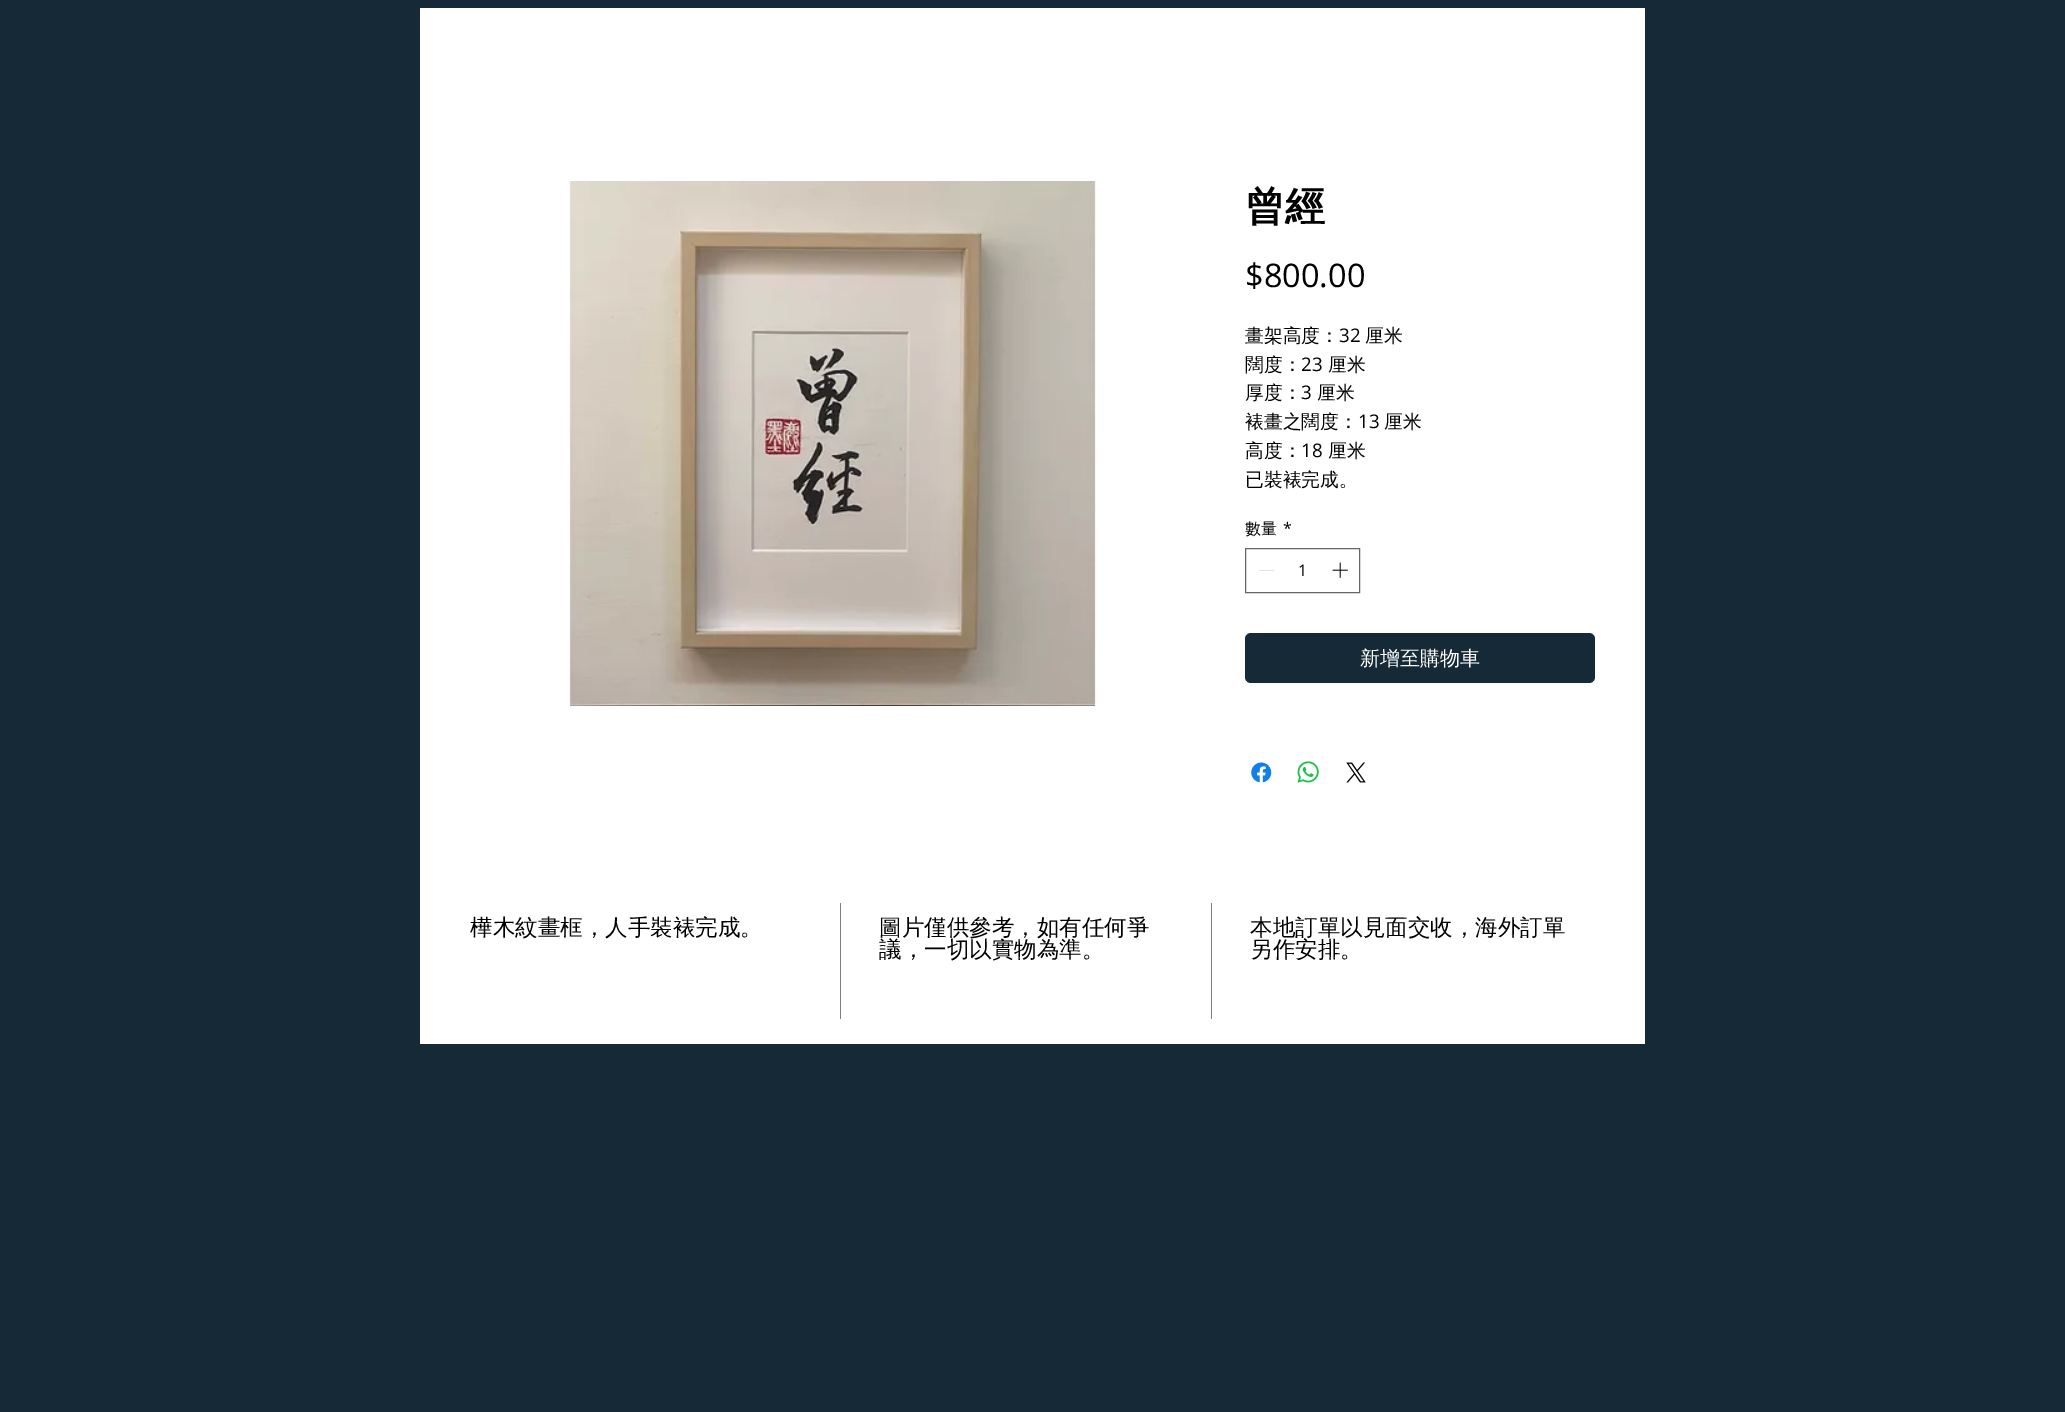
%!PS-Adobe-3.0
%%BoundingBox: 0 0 2065 1412
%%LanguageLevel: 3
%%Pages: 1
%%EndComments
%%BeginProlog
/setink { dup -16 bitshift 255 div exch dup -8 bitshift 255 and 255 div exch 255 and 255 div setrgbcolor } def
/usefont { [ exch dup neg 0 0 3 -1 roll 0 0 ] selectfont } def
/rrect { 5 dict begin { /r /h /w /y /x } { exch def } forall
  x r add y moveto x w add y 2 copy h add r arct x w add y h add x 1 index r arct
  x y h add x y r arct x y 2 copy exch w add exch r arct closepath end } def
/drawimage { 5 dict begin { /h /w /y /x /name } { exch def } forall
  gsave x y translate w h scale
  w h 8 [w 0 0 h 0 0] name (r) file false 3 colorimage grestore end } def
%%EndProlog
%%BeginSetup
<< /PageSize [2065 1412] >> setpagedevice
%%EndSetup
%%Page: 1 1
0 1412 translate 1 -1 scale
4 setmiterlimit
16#162936 setink
0 0 2065 1412 rectfill
16#FFFFFF setink
420 8 1225 1036 rectfill
(img1.raw) 569 181 527 525 drawimage
/WenQuanYiZenHei-Bold 40 usefont
16#000000 setink
1245 220 moveto (曾經) show
/OpenSans-Regular 32.5 usefont
1245 287 moveto ($800.00) show
/WenQuanYiZenHei-Medium 18.75 usefont
1245 342 moveto (畫架高度：) show
/OpenSans-Regular 18.75 usefont
1339 342 moveto (32) show
/WenQuanYiZenHei-Medium 18.75 usefont
1365 342 moveto (厘米) show
1245 371 moveto (闊度：) show
/OpenSans-Regular 18.75 usefont
1301 371 moveto (23) show
/WenQuanYiZenHei-Medium 18.75 usefont
1328 371 moveto (厘米) show
1245 399 moveto (厚度：) show
/OpenSans-Regular 18.75 usefont
1301 399 moveto (3) show
/WenQuanYiZenHei-Medium 18.75 usefont
1317 399 moveto (厘米) show
1245 428 moveto (裱畫之闊度：) show
/OpenSans-Regular 18.75 usefont
1358 428 moveto (13) show
/WenQuanYiZenHei-Medium 18.75 usefont
1384 428 moveto (厘米) show
1245 457 moveto (高度：) show
/OpenSans-Regular 18.75 usefont
1301 457 moveto (18) show
/WenQuanYiZenHei-Medium 18.75 usefont
1328 457 moveto (厘米) show
1245 486 moveto (已裝裱完成。) show
/WenQuanYiZenHei-Medium 16 usefont
1245 534 moveto (數量) show
/OpenSans-Regular 16 usefont
1283 534 moveto (*) show
16#666666 setink
1245.5 548.5 114 44 rectstroke
16#E3E3E3 setink
1259 570 15 1 rectfill
16#000000 setink
1298 576 moveto (1) show
(img2.raw) 1332 562 16 16 drawimage
16#162936 setink
1245 633 350 50 6 rrect fill
/WenQuanYiZenHei-Medium 20 usefont
16#FFFFFF setink
1360 665 moveto (新增至購物車) show
(img3.raw) 1251 762 21 21 drawimage
(img4.raw) 1297 761 22 22 drawimage
(img5.raw) 1346 762 20 21 drawimage
16#7F7E7E setink
840 903 1 116 rectfill
/WenQuanYiZenHei-Medium 22.5 usefont
16#000000 setink
470 935 moveto (樺木紋畫框，人手裝裱完成。) show
16#7F7E7E setink
1211 903 1 116 rectfill
16#000000 setink
[
    [(圖片僅供參考，如有任何爭) 879 935]
    [(議，一切以實物為準。) 879 957]
    [(本地訂單以見面交收，海外訂單) 1250 935]
    [(另作安排。) 1250 957]
] { aload pop moveto show } forall
showpage
%%EOF
